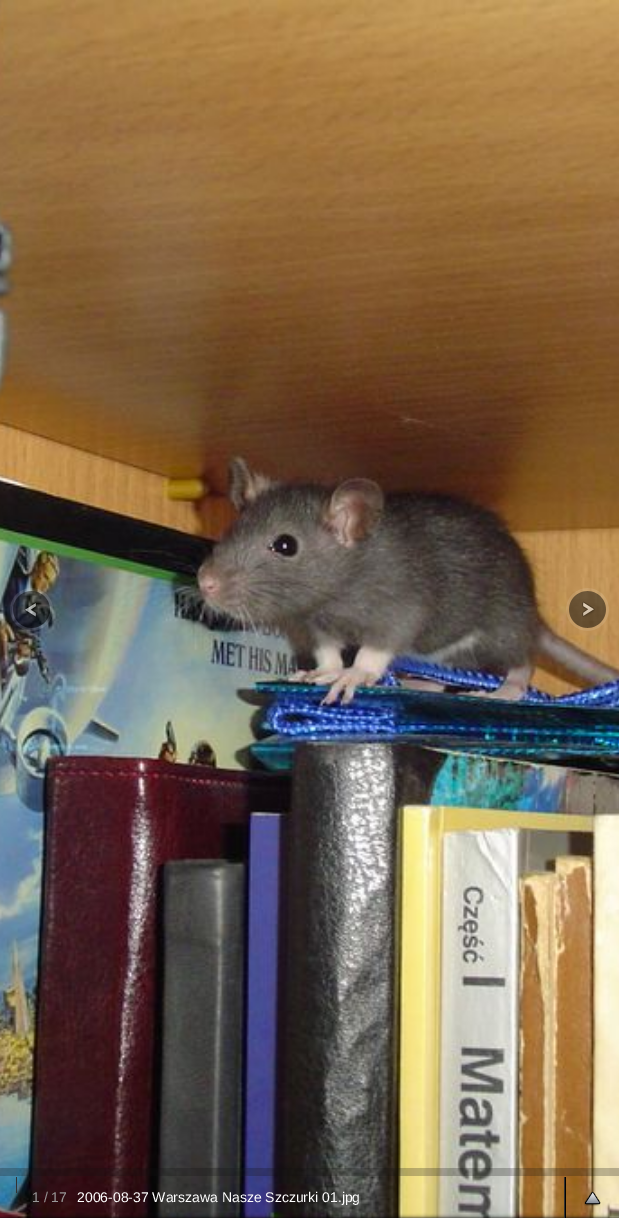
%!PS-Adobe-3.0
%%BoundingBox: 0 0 619 1218
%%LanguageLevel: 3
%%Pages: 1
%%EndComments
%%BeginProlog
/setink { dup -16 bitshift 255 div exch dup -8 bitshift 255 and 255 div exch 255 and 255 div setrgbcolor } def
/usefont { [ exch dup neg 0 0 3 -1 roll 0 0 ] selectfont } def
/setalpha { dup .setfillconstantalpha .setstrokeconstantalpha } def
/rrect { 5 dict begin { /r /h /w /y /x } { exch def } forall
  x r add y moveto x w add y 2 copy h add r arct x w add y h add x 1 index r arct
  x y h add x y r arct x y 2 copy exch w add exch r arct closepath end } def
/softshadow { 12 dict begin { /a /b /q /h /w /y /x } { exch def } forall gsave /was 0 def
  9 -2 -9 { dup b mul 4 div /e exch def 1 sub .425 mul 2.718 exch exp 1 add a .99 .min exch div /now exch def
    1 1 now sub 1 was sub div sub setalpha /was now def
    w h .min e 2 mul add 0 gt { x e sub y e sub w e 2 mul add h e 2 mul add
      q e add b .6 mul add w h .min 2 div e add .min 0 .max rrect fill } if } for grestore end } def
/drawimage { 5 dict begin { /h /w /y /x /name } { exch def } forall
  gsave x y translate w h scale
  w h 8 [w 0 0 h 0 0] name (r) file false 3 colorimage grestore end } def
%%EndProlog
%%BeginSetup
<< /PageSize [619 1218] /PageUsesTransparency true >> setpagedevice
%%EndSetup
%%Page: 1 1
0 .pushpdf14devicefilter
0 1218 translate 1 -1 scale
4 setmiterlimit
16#FFFFFF setink
0 0 619 1218 rectfill
(img1.raw) 0 0 619 1218 drawimage
(img2.raw) 10 588 43 43 drawimage
(img3.raw) 566 588 43 43 drawimage
0.25 setalpha
16#101010 setink
0 1168 619 8 rectfill
1 setalpha
16#333333 setink
16 1177 1 16 rectfill
/LiberationSans-Regular 14 usefont
16#999999 setink
32 1202 moveto (1 / 17) show
16#FFFFFF setink
77 1202 moveto (2006-08-37 Warszawa Nasze Szczurki 01.jpg) show
16#000000 setink
0 1218 619 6 0 2 1 softshadow
16#333333 setink
564 1177 1 41 rectfill
(img4.raw) 565 1177 36 41 drawimage
.poppdf14devicefilter showpage
%%EOF
